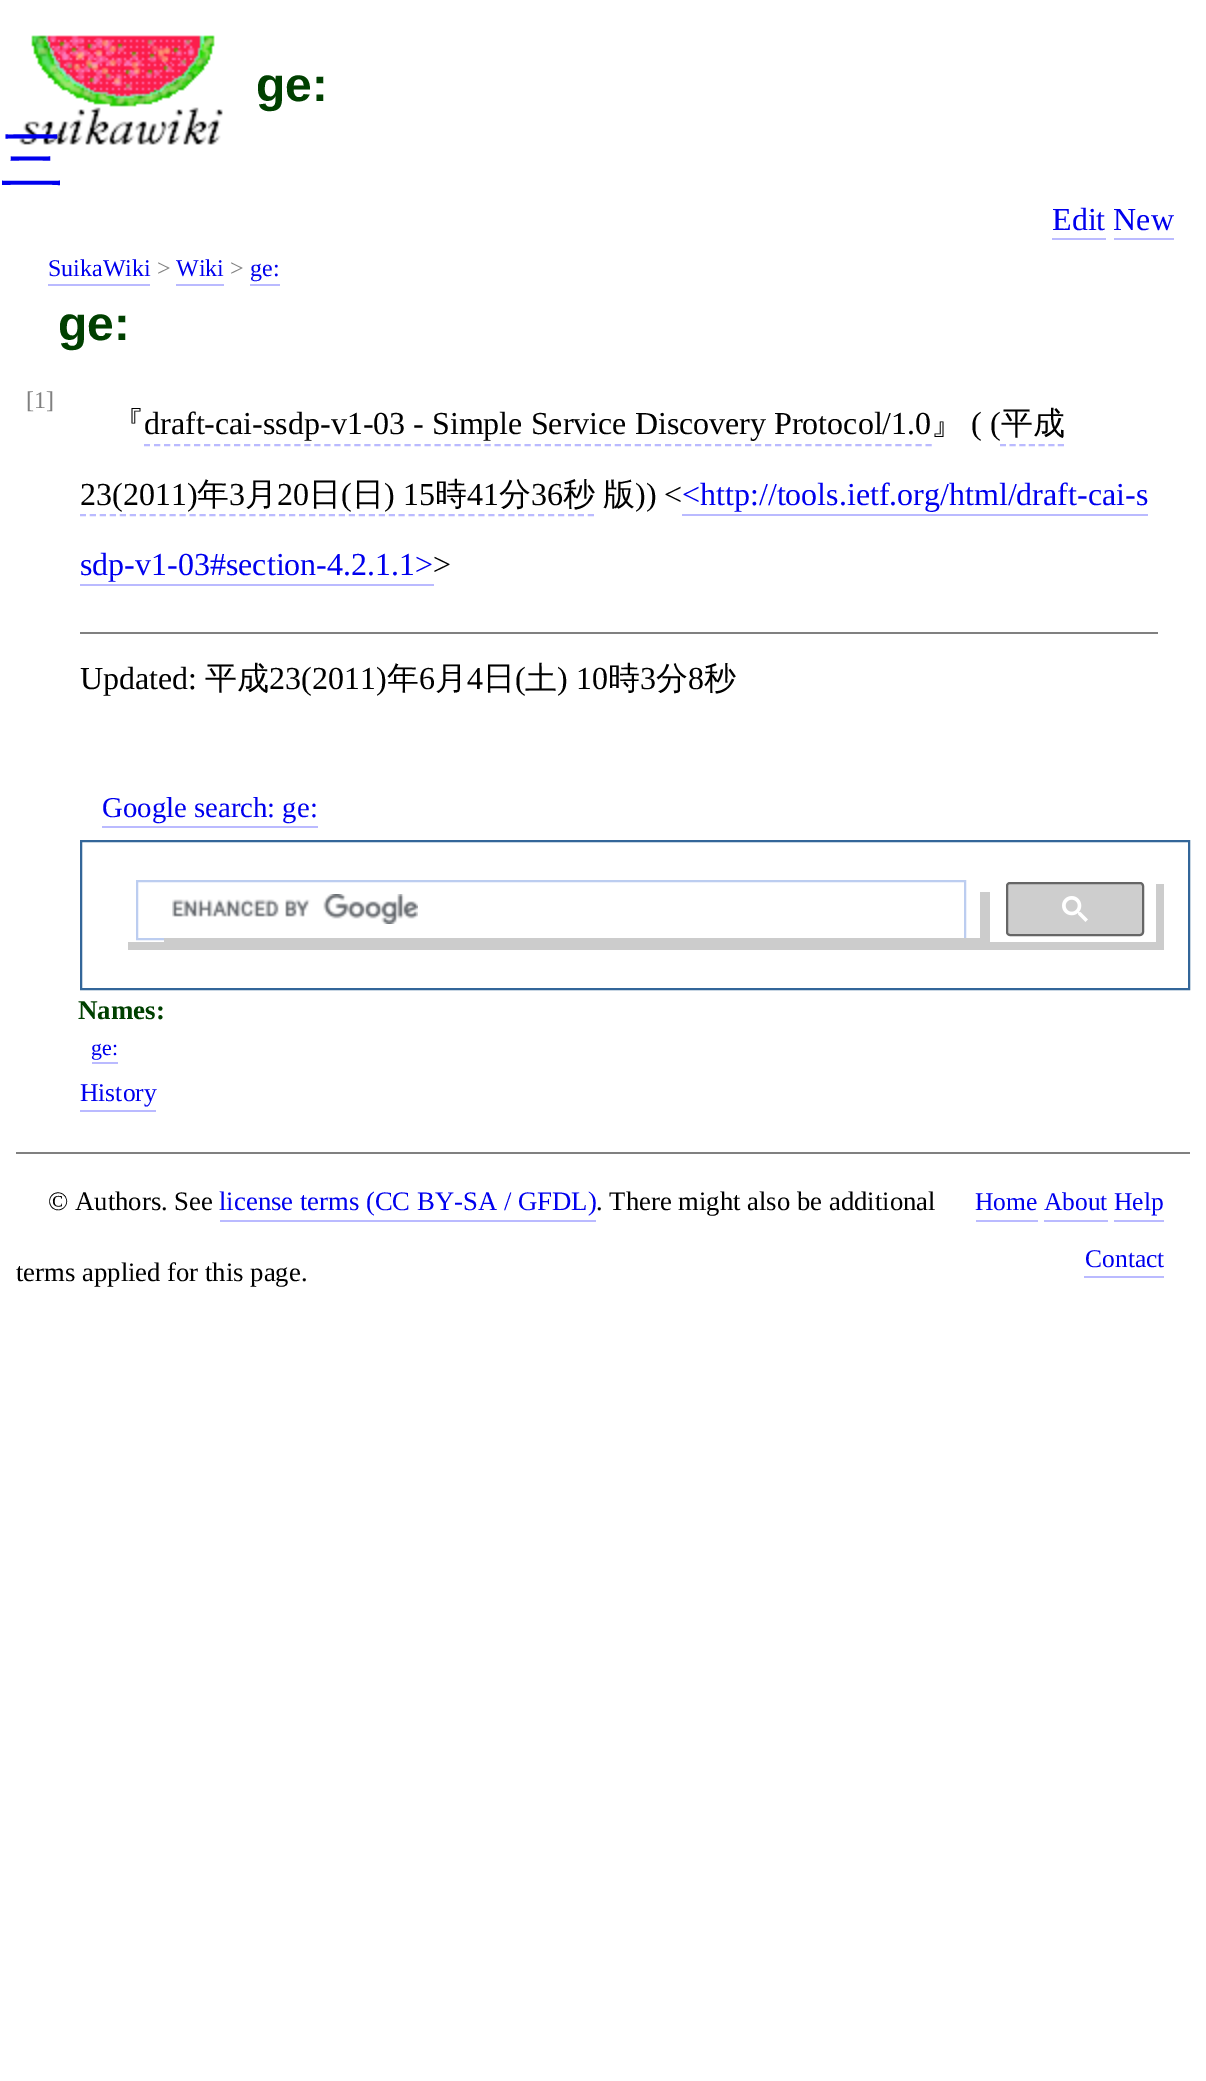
%!PS-Adobe-3.0
%%BoundingBox: 0 0 1206 2081
%%LanguageLevel: 3
%%Pages: 1
%%EndComments
%%BeginProlog
/setink { dup -16 bitshift 255 div exch dup -8 bitshift 255 and 255 div exch 255 and 255 div setrgbcolor } def
/usefont { [ exch dup neg 0 0 3 -1 roll 0 0 ] selectfont } def
/rrect { 5 dict begin { /r /h /w /y /x } { exch def } forall
  x r add y moveto x w add y 2 copy h add r arct x w add y h add x 1 index r arct
  x y h add x y r arct x y 2 copy exch w add exch r arct closepath end } def
/drawimage { 5 dict begin { /h /w /y /x /name } { exch def } forall
  gsave x y translate w h scale
  w h 8 [w 0 0 h 0 0] name (r) file false 3 colorimage grestore end } def
%%EndProlog
%%BeginSetup
<< /PageSize [1206 2081] >> setpagedevice
%%EndSetup
%%Page: 1 1
0 2081 translate 1 -1 scale
4 setmiterlimit
16#FFFFFF setink
0 0 1206 2081 rectfill
(img1.raw) 19 35 204 110 drawimage
/LiberationSans-Bold 48 usefont
16#004000 setink
256 101 moveto (ge:) show
/WenQuanYiZenHei-Medium 64 usefont
16#0000EE setink
0 182 moveto (三) show
/LiberationSerif-Regular 32 usefont
1052 230 moveto (Edit New) show
16#BABAFF setink
1052 238 54 2 rectfill
1114 238 60 2 rectfill
/LiberationSerif-Regular 24 usefont
16#0000EE setink
48 276 moveto (SuikaWiki) show
16#BABAFF setink
48 284 102 2 rectfill
16#808080 setink
157 276 moveto (>) show
16#0000EE setink
176 276 moveto (Wiki) show
16#BABAFF setink
176 284 48 2 rectfill
16#808080 setink
230 276 moveto (>) show
16#0000EE setink
250 276 moveto (ge:) show
16#BABAFF setink
250 284 30 2 rectfill
/LiberationSans-Bold 48 usefont
16#004000 setink
58 340 moveto (ge:) show
/LiberationSerif-Regular 24 usefont
16#808080 setink
26 408 moveto ([1]) show
/WenQuanYiZenHei-Medium 32 usefont
16#000000 setink
112 434 moveto (『) show
/LiberationSerif-Regular 32 usefont
144 434 moveto (draft-cai-ssdp-v1-03 - Simple Service Discovery Protocol/1.0) show
/WenQuanYiZenHei-Medium 32 usefont
931 434 moveto (』) show
16#BABAFF setink
2 setlinewidth
[6 4.02] 0 setdash
144 445 moveto 932 445 lineto stroke
/LiberationSerif-Regular 32 usefont
16#000000 setink
971 434 moveto (\( \() show
/WenQuanYiZenHei-Medium 32 usefont
1001 434 moveto (平成) show
16#BABAFF setink
[6 3.66] 0 setdash
1000 445 moveto 1064 445 lineto stroke
/LiberationSerif-Regular 32 usefont
16#000000 setink
80 505 moveto (23\(2011\)) show
16#BABAFF setink
[6 3.96] 0 setdash
80 515 moveto 594 515 lineto stroke
/WenQuanYiZenHei-Medium 32 usefont
16#000000 setink
197 505 moveto (年) show
/LiberationSerif-Regular 32 usefont
229 505 moveto (3) show
/WenQuanYiZenHei-Medium 32 usefont
245 505 moveto (月) show
/LiberationSerif-Regular 32 usefont
277 505 moveto (20) show
/WenQuanYiZenHei-Medium 32 usefont
309 505 moveto (日) show
/LiberationSerif-Regular 32 usefont
341 505 moveto (\() show
/WenQuanYiZenHei-Medium 32 usefont
352 505 moveto (日) show
/LiberationSerif-Regular 32 usefont
384 505 moveto (\) 15) show
/WenQuanYiZenHei-Medium 32 usefont
435 505 moveto (時) show
/LiberationSerif-Regular 32 usefont
467 505 moveto (41) show
/WenQuanYiZenHei-Medium 32 usefont
499 505 moveto (分) show
/LiberationSerif-Regular 32 usefont
531 505 moveto (36) show
/WenQuanYiZenHei-Medium 32 usefont
563 505 moveto (秒) show
603 505 moveto (版) show
/LiberationSerif-Regular 32 usefont
635 505 moveto (\)\) <) show
16#0000EE setink
682 505 moveto (<http://tools.ietf.org/html/draft-cai-s) show
16#BABAFF setink
682 514 466 2 rectfill
16#0000EE setink
80 575 moveto (sdp-v1-03#section-4.2.1.1>) show
16#BABAFF setink
80 584 354 2 rectfill
16#000000 setink
433 575 moveto (>) show
16#808080 setink
80 632 1078 2 rectfill
16#000000 setink
80 689 moveto (Updated:) show
/WenQuanYiZenHei-Medium 32 usefont
205 689 moveto (平成) show
/LiberationSerif-Regular 32 usefont
269 689 moveto (23\(2011\)) show
/WenQuanYiZenHei-Medium 32 usefont
387 689 moveto (年) show
/LiberationSerif-Regular 32 usefont
419 689 moveto (6) show
/WenQuanYiZenHei-Medium 32 usefont
435 689 moveto (月) show
/LiberationSerif-Regular 32 usefont
467 689 moveto (4) show
/WenQuanYiZenHei-Medium 32 usefont
483 689 moveto (日) show
/LiberationSerif-Regular 32 usefont
515 689 moveto (\() show
/WenQuanYiZenHei-Medium 32 usefont
525 689 moveto (土) show
/LiberationSerif-Regular 32 usefont
557 689 moveto (\) 10) show
/WenQuanYiZenHei-Medium 32 usefont
608 689 moveto (時) show
/LiberationSerif-Regular 32 usefont
640 689 moveto (3) show
/WenQuanYiZenHei-Medium 32 usefont
656 689 moveto (分) show
/LiberationSerif-Regular 32 usefont
688 689 moveto (8) show
/WenQuanYiZenHei-Medium 32 usefont
704 689 moveto (秒) show
/LiberationSerif-Regular 28.75 usefont
16#0000EE setink
102 817 moveto (Google search: ge:) show
16#BABAFF setink
102 826 216 2 rectfill
16#336699 setink
[] 0 setdash
81 841 1108 148 rectstroke
16#CCCCCC setink
128 942 moveto 128 950 lineto 1164 950 lineto 1164 884 lineto 1156 884 lineto 1156 942 lineto closepath fill
16#BCCDF0 setink
137 881 828 58 rectstroke
16#CCCCCC setink
164 938 moveto 164 948 lineto 990 948 lineto 990 892 lineto 980 892 lineto 980 938 lineto closepath fill
(img2.raw) 172 894 246 30 drawimage
16#CECECE setink
1007 883 136 52 3 rrect gsave fill grestore
16#666666 setink
stroke
(img3.raw) 1062 896 26 26 drawimage
/LiberationSerif-Bold 27 usefont
16#004000 setink
78 1019 moveto (Names:) show
/LiberationSerif-Regular 22 usefont
16#0000EE setink
91 1055 moveto (ge:) show
16#BABAFF setink
92 1062 26 2 rectfill
/LiberationSerif-Regular 25.5 usefont
16#0000EE setink
80 1101 moveto (History) show
16#BABAFF setink
80 1110 76 2 rectfill
16#808080 setink
16 1152 1174 2 rectfill
/LiberationSerif-Regular 26.7 usefont
16#000000 setink
48 1210 moveto (© Authors. See) show
16#0000EE setink
219 1210 moveto (license terms \(CC BY-SA / GFDL\)) show
16#BABAFF setink
220 1220 376 2 rectfill
16#000000 setink
596 1210 moveto (. There might also be additional) show
16 1281 moveto (terms applied for this page.) show
/LiberationSerif-Regular 25.5 usefont
16#0000EE setink
975 1210 moveto (Home About Help) show
[
    [976 1220 62 2 16#BABAFF]
    [1044 1220 64 2 16#BABAFF]
    [1114 1220 50 2 16#BABAFF]
] { aload pop setink rectfill } forall
16#0000EE setink
1085 1267 moveto (Contact) show
16#BABAFF setink
1084 1276 80 2 rectfill
showpage
%%EOF
